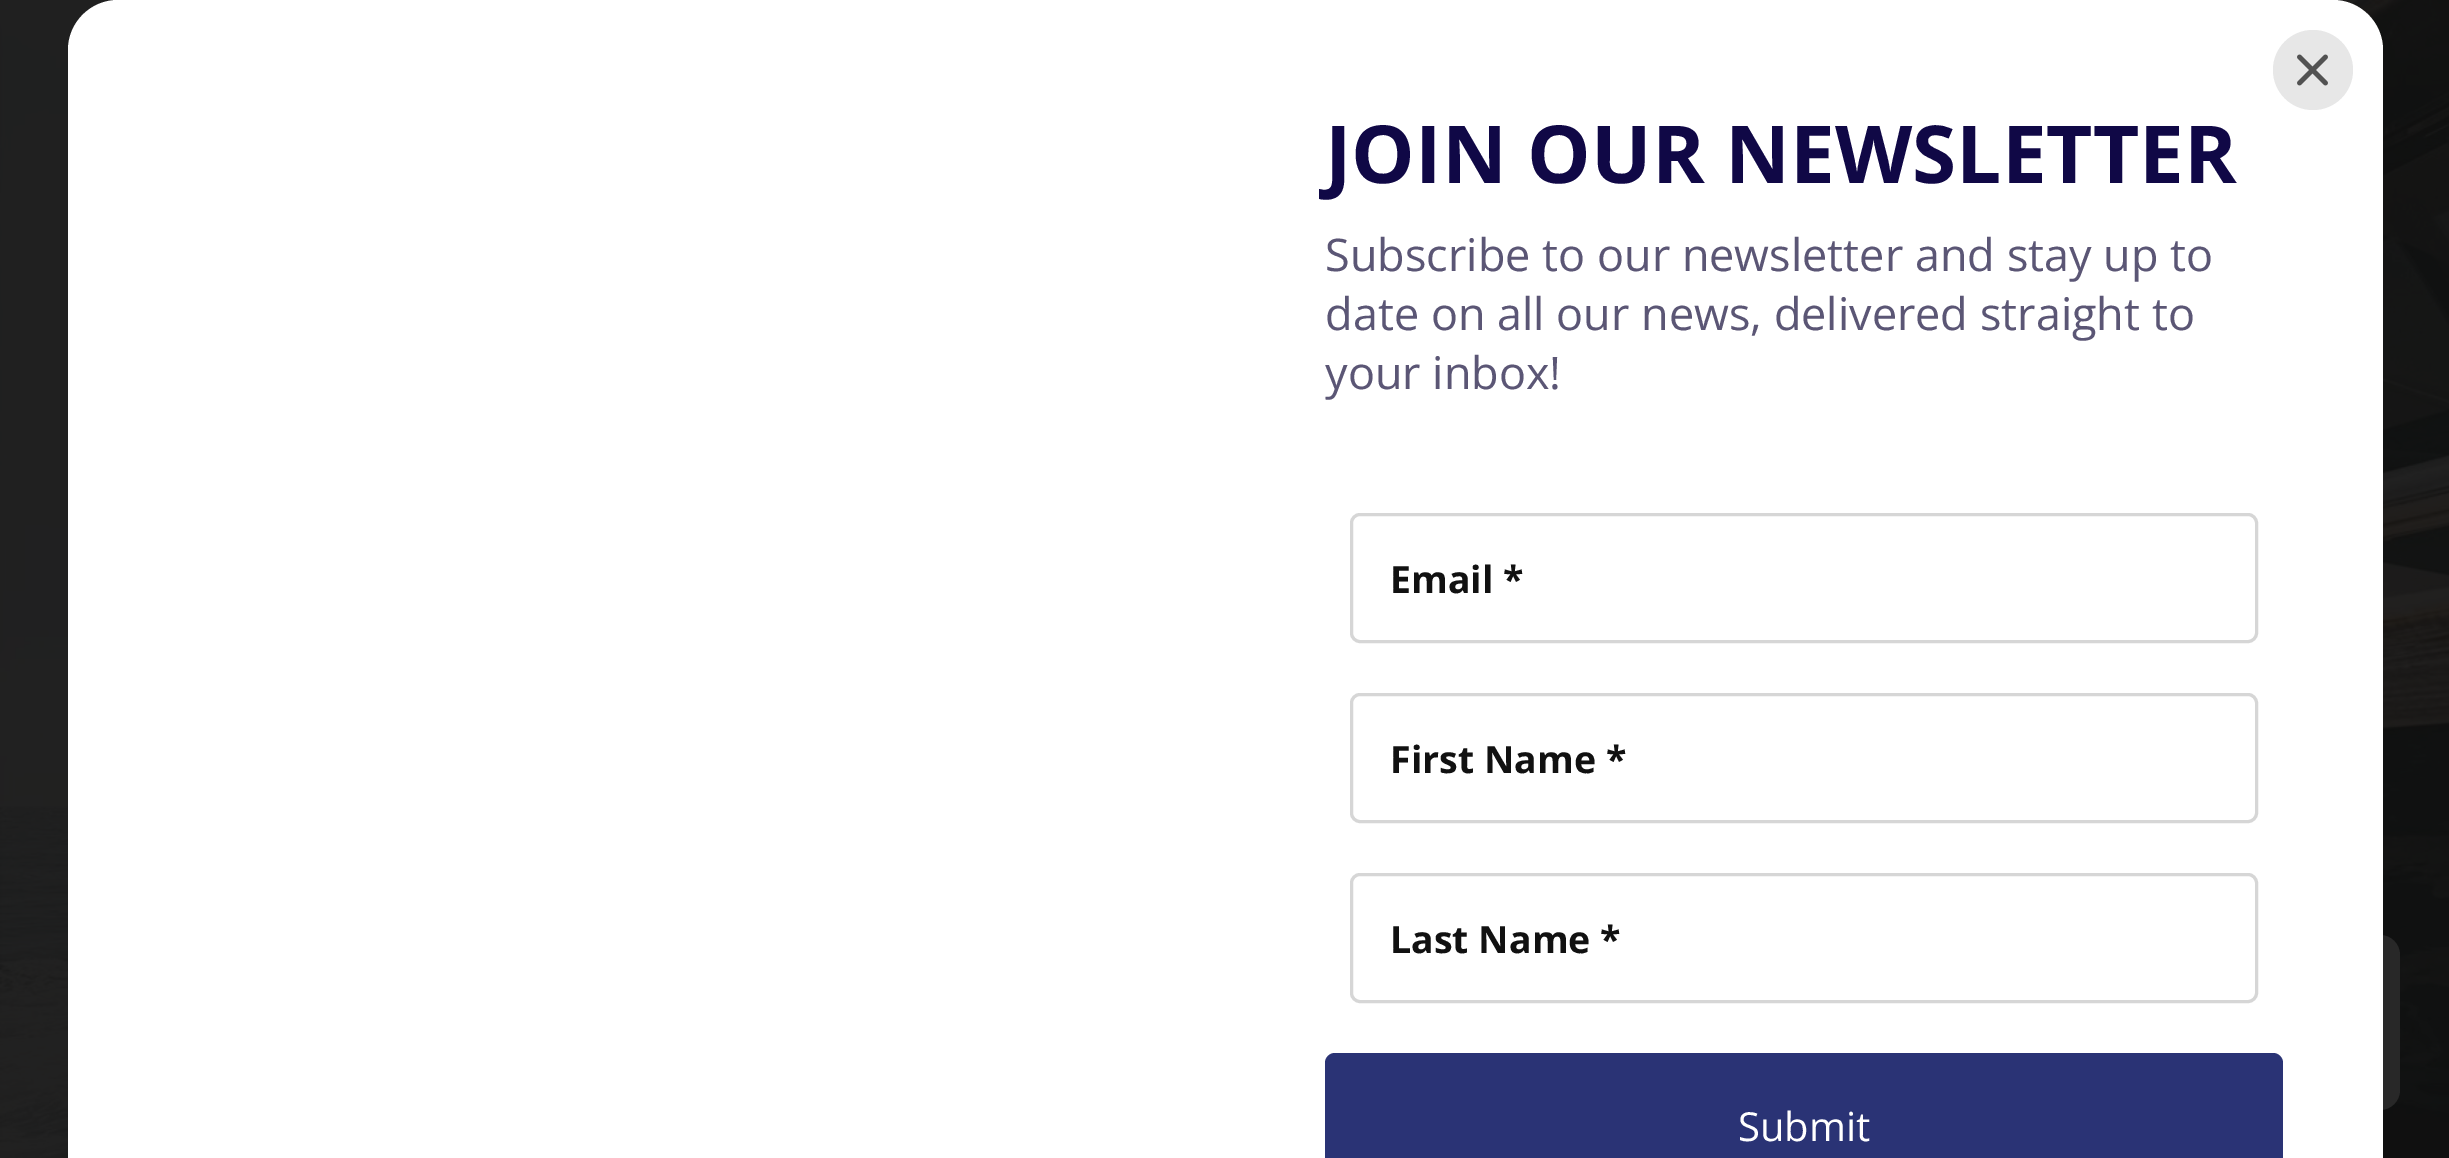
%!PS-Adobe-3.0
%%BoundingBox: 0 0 2449 1158
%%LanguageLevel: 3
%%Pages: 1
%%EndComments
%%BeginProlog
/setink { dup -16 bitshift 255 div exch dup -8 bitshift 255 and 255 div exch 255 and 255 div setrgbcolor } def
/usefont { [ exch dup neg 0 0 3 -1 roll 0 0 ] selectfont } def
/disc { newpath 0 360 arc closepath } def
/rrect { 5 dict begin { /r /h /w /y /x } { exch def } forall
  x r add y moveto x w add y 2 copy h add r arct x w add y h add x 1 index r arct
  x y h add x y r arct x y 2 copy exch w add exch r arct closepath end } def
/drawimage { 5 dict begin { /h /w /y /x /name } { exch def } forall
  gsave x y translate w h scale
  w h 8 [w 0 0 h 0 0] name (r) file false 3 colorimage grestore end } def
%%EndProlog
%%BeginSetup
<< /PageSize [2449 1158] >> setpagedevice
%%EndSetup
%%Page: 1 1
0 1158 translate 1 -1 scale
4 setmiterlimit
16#FFFFFF setink
0 0 2449 1158 rectfill
(img1.raw) 0 0 2449 1158 drawimage
16#282828 setink
1925 935 475 175 20 rrect fill
16#FFFFFF setink
118 0 moveto 2333 0 lineto 2360.5 0 2383 22.5 2383 50 curveto 2383 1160 lineto 68 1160 lineto 68 50 lineto 68 22.5 90.5 0 118 0 curveto closepath fill
16#E7E7E7 setink
2313 70 40 disc fill
(img2.raw) 2297 54 31 32 drawimage
/OpenSans-Bold 80 usefont
16#100846 setink
1325 183 moveto (JOIN OUR NEWSLETTER) show
/OpenSans-Regular 45 usefont
16#5B5675 setink
[
    [(Subscribe to our newsletter and stay up to) 1325 271]
    [(date on all our news, delivered straight to) 1325 330]
    [(your inbox!) 1325 389]
] { aload pop moveto show } forall
16#D6D6D6 setink
3 setlinewidth
1351.5 514.5 905 127 8.5 rrect stroke
/OpenSans-Bold 37.5 usefont
16#111111 setink
1390 593 moveto (Email *) show
16#D6D6D6 setink
1351.5 694.5 905 127 8.5 rrect stroke
16#111111 setink
1390 773 moveto (First Name *) show
16#D6D6D6 setink
1351.5 874.5 905 127 8.5 rrect stroke
16#111111 setink
1390 953 moveto (Last Name *) show
16#2A3375 setink
1335 1053 moveto 2273 1053 lineto 2278.5 1053 2283 1057.5 2283 1063 curveto 2283 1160 lineto 1325 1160 lineto 1325 1063 lineto 1325 1057.5 1329.5 1053 1335 1053 curveto closepath fill
/OpenSans-Regular 40 usefont
16#FFFFFF setink
1738 1141 moveto (Submit) show
showpage
%%EOF
